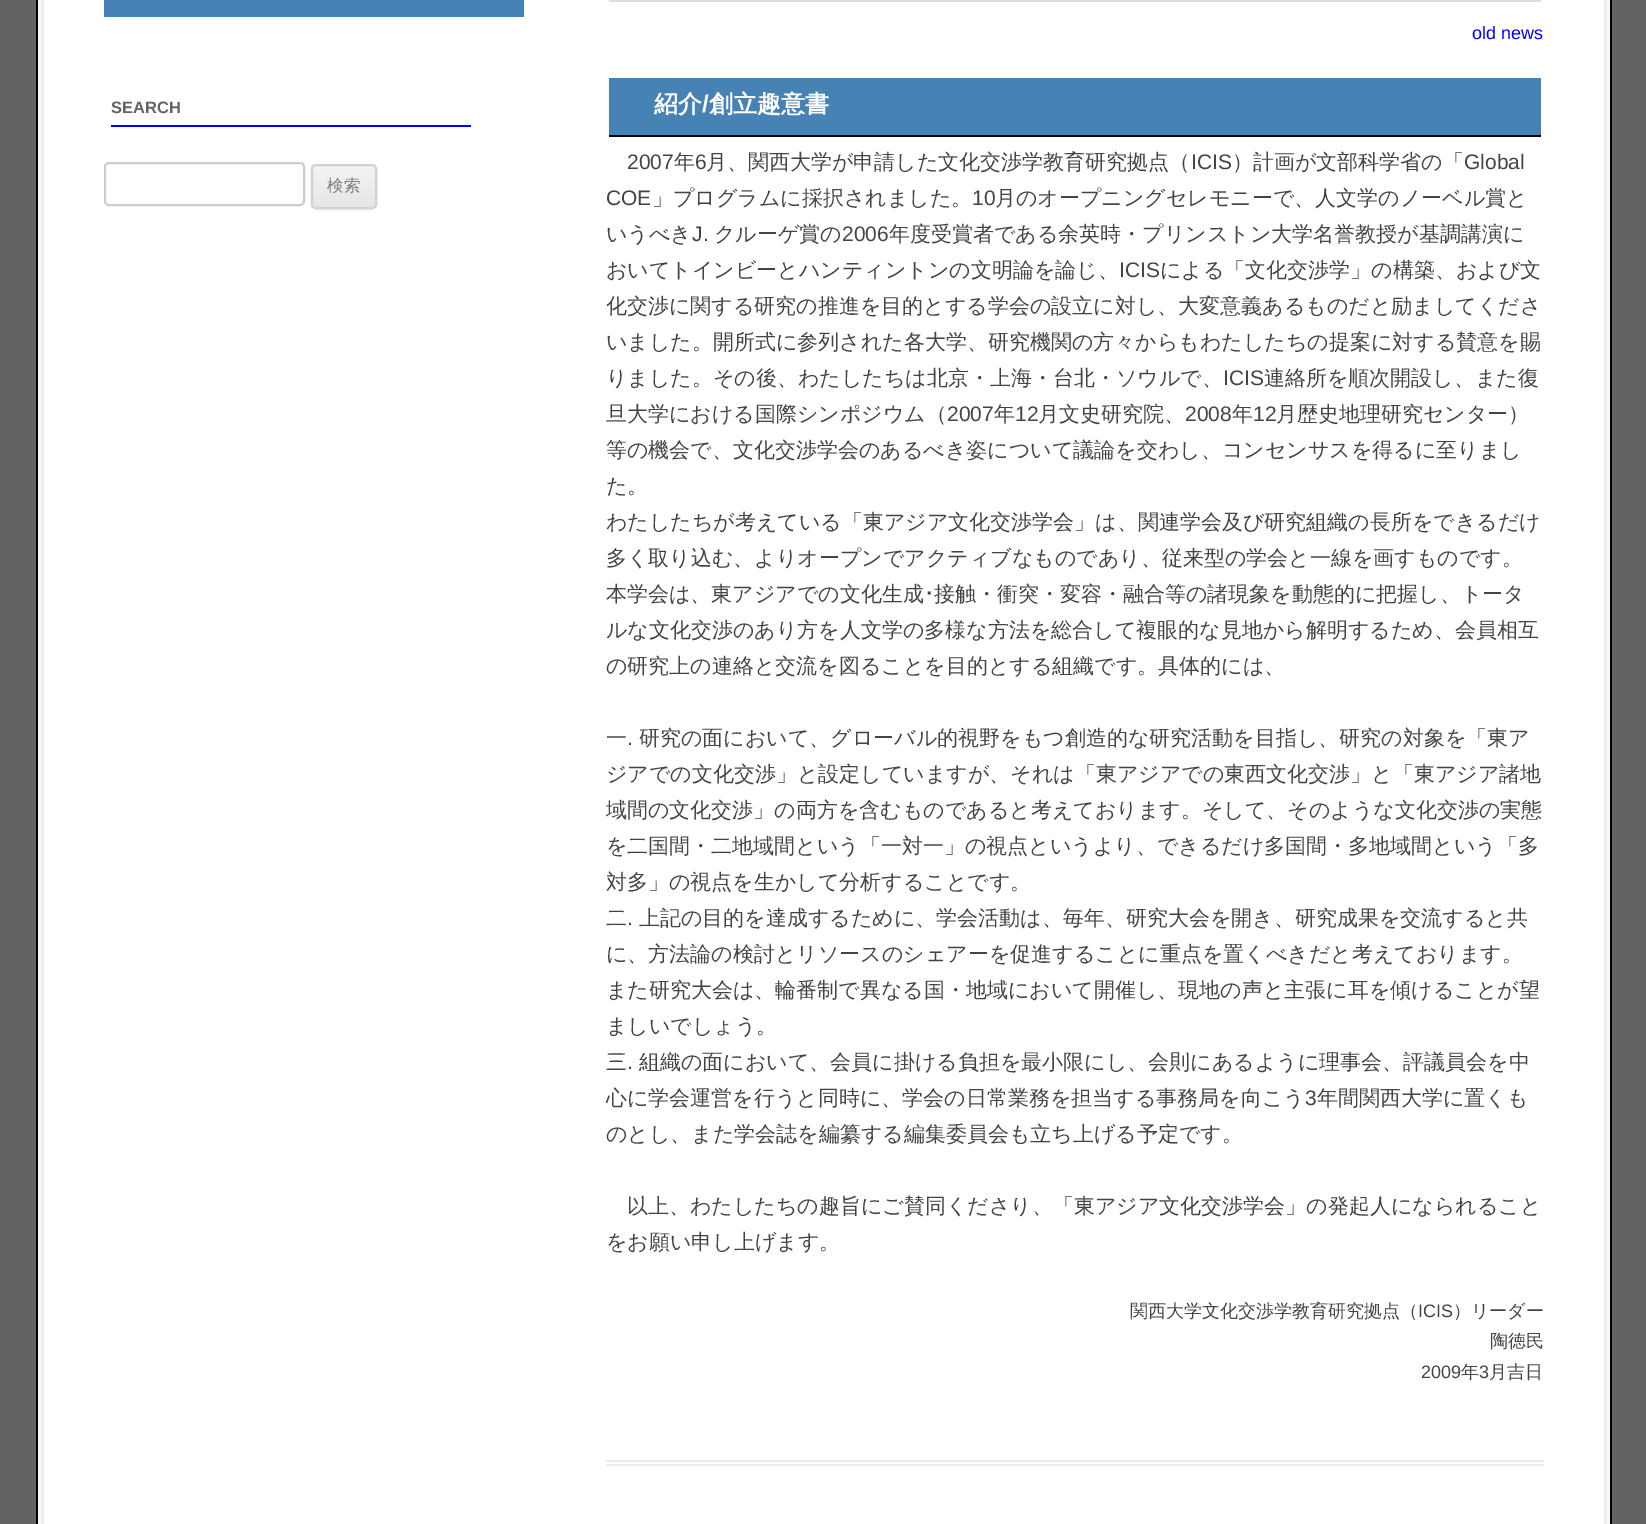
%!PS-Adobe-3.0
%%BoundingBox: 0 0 1646 1524
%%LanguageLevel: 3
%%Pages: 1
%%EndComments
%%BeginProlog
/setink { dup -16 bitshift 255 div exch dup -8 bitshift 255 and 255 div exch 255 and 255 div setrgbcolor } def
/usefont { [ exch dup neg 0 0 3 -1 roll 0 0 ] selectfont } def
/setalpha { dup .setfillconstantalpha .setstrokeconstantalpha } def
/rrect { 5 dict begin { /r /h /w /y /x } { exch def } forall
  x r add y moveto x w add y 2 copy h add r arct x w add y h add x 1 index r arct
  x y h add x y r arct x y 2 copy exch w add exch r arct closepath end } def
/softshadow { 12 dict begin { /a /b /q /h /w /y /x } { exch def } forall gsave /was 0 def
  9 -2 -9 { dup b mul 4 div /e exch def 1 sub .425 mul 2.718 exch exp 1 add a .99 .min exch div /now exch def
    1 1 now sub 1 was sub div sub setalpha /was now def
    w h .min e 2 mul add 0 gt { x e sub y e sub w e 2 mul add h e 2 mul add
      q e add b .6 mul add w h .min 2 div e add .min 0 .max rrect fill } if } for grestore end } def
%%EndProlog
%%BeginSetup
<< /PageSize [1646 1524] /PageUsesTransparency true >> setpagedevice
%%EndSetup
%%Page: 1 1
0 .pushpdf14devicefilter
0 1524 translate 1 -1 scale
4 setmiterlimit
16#636363 setink
0 0 1646 1524 rectfill
[
    [38 0 1572 1524 16#FFFFFF]
    [1610 0 2 1524 16#000000]
    [36 0 2 1524 16#000000]
] { aload pop setink rectfill } forall
16#646464 setink
44 -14 1560 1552 0 4.5 0.3 softshadow
[
    [44 0 1560 1524 16#FFFFFF]
    [104 0 420 17 16#4682B4]
    [111 125 360 2 16#0000FF]
] { aload pop setink rectfill } forall
/LiberationSans-Bold 16.5 usefont
16#636363 setink
111 113 moveto (SEARCH) show
16#CCCCCC setink
2 setlinewidth
105 163 199 42 4 rrect stroke
16#404040 setink
311 165 66 45 5 1.5 0.1 softshadow
gsave
311 164 66 45 5 rrect clip newpath
gsave 311 165 moveto 377 165 lineto 377 207 lineto 311 207 lineto closepath clip newpath
<< /ShadingType 2 /ColorSpace /DeviceRGB /Coords [344 165 344 207] /Extend [true true] /Function << /FunctionType 2 /Domain [0 1] /C0 [0.957 0.957 0.957] /C1 [0.902 0.902 0.902] /N 1 >> >> shfill grestore
grestore
16#D2D2D2 setink
312 165 64 43 4 rrect stroke
/WenQuanYiZenHei-Medium 16.5 usefont
16#7C7C7C setink
327 191 moveto (検索) show
16#DDDDDD setink
609 0 932 2 rectfill
/LiberationSans-Regular 18 usefont
16#0000FF setink
1472 39 moveto (old news) show
[
    [606 1460 938 2 16#EDEDED]
    [606 1464 938 2 16#EDEDED]
    [609 78 932 57 16#4682B4]
    [609 135 932 2 16#000000]
] { aload pop setink rectfill } forall
/WenQuanYiZenHei-Bold 24 usefont
16#FFFFFF setink
654 112 moveto (紹介) show
/LiberationSans-Bold 24 usefont
702 112 moveto (/) show
/WenQuanYiZenHei-Bold 24 usefont
709 112 moveto (創立趣意書) show
/LiberationSans-Regular 21 usefont
16#444444 setink
627 169 moveto (2007) show
/WenQuanYiZenHei-Medium 21 usefont
674 169 moveto (年) show
/LiberationSans-Regular 21 usefont
695 169 moveto (6) show
/WenQuanYiZenHei-Medium 21 usefont
706 169 moveto (月、関西大学が申請した文化交渉学教育研究拠点（) show
/LiberationSans-Regular 21 usefont
1191 169 moveto (ICIS) show
/WenQuanYiZenHei-Medium 21 usefont
1232 169 moveto (）計画が文部科学省の「) show
/LiberationSans-Regular 21 usefont
1464 169 moveto (Global) show
606 205 moveto (COE) show
/WenQuanYiZenHei-Medium 21 usefont
652 205 moveto (」プログラムに採択されました。) show
/LiberationSans-Regular 21 usefont
972 205 moveto (10) show
/WenQuanYiZenHei-Medium 21 usefont
995 205 moveto (月のオープニングセレモニーで、人文学のノーベル賞と) show
606 241 moveto (いうべき) show
/LiberationSans-Regular 21 usefont
692 241 moveto (J.) show
/WenQuanYiZenHei-Medium 21 usefont
714 241 moveto (クルーゲ賞の) show
/LiberationSans-Regular 21 usefont
842 241 moveto (2006) show
/WenQuanYiZenHei-Medium 21 usefont
889 241 moveto (年度受賞者である余英時・プリンストン大学名誉教授が基調講演に) show
606 277 moveto (おいてトインビーとハンティントンの文明論を論じ、) show
/LiberationSans-Regular 21 usefont
1119 277 moveto (ICIS) show
/WenQuanYiZenHei-Medium 21 usefont
[
    [(による「文化交渉学」の構築、および文) 1160 277]
    [(化交渉に関する研究の推進を目的とする学会の設立に対し、大変意義あるものだと励ましてくださ) 606 313]
    [(いました。開所式に参列された各大学、研究機関の方々からもわたしたちの提案に対する賛意を賜) 606 349]
    [(りました。その後、わたしたちは北京・上海・台北・ソウルで、) 606 385]
] { aload pop moveto show } forall
/LiberationSans-Regular 21 usefont
1223 385 moveto (ICIS) show
/WenQuanYiZenHei-Medium 21 usefont
1264 385 moveto (連絡所を順次開設し、また復) show
606 421 moveto (旦大学における国際シンポジウム（) show
/LiberationSans-Regular 21 usefont
947 421 moveto (2007) show
/WenQuanYiZenHei-Medium 21 usefont
994 421 moveto (年) show
/LiberationSans-Regular 21 usefont
1015 421 moveto (12) show
/WenQuanYiZenHei-Medium 21 usefont
1038 421 moveto (月文史研究院、) show
/LiberationSans-Regular 21 usefont
1185 421 moveto (2008) show
/WenQuanYiZenHei-Medium 21 usefont
1232 421 moveto (年) show
/LiberationSans-Regular 21 usefont
1253 421 moveto (12) show
/WenQuanYiZenHei-Medium 21 usefont
[
    [(月歴史地理研究センター）) 1276 421]
    [(等の機会で、文化交渉学会のあるべき姿について議論を交わし、コンセンサスを得るに至りまし) 606 457]
    [(た。) 606 493]
    [(わたしたちが考えている「東アジア文化交渉学会」は、関連学会及び研究組織の長所をできるだけ) 606 529]
    [(多く取り込む、よりオープンでアクティブなものであり、従来型の学会と一線を画すものです。) 606 565]
    [(本学会は、東アジアでの文化生成) 606 601]
] { aload pop moveto show } forall
/IPAPGothic-Regular 21 usefont
924 601 moveto (･) show
/WenQuanYiZenHei-Medium 21 usefont
[
    [(接触・衝突・変容・融合等の諸現象を動態的に把握し、トータ) 934 601]
    [(ルな文化交渉のあり方を人文学の多様な方法を総合して複眼的な見地から解明するため、会員相互) 606 637]
    [(の研究上の連絡と交流を図ることを目的とする組織です。具体的には、) 606 673]
    [(一) 606 745]
    [(研究の面において、グローバル的視野をもつ創造的な研究活動を目指し、研究の対象を「東ア) 639 745]
] { aload pop moveto show } forall
/LiberationSans-Regular 21 usefont
627 745 moveto (.) show
/WenQuanYiZenHei-Medium 21 usefont
[
    [(ジアでの文化交渉」と設定していますが、それは「東アジアでの東西文化交渉」と「東アジア諸地) 606 781]
    [(域間の文化交渉」の両方を含むものであると考えております。そして、そのような文化交渉の実態) 606 817]
    [(を二国間・二地域間という「一対一」の視点というより、できるだけ多国間・多地域間という「多) 606 853]
    [(対多」の視点を生かして分析することです。) 606 889]
    [(二) 606 925]
] { aload pop moveto show } forall
/LiberationSans-Regular 21 usefont
627 925 moveto (.) show
/WenQuanYiZenHei-Medium 21 usefont
[
    [(上記の目的を達成するために、学会活動は、毎年、研究大会を開き、研究成果を交流すると共) 639 925]
    [(に、方法論の検討とリソースのシェアーを促進することに重点を置くべきだと考えております。) 606 961]
    [(また研究大会は、輪番制で異なる国・地域において開催し、現地の声と主張に耳を傾けることが望) 606 997]
    [(ましいでしょう。) 606 1033]
    [(三) 606 1069]
] { aload pop moveto show } forall
/LiberationSans-Regular 21 usefont
627 1069 moveto (.) show
/WenQuanYiZenHei-Medium 21 usefont
639 1069 moveto (組織の面において、会員に掛ける負担を最小限にし、会則にあるように理事会、評議員会を中) show
606 1105 moveto (心に学会運営を行うと同時に、学会の日常業務を担当する事務局を向こう) show
/LiberationSans-Regular 21 usefont
1305 1105 moveto (3) show
/WenQuanYiZenHei-Medium 21 usefont
[
    [(年間関西大学に置くも) 1317 1105]
    [(のとし、また学会誌を編纂する編集委員会も立ち上げる予定です。) 606 1141]
    [(以上、わたしたちの趣旨にご賛同くださり、「東アジア文化交渉学会」の発起人になられること) 627 1213]
    [(をお願い申し上げます。) 606 1249]
] { aload pop moveto show } forall
/WenQuanYiZenHei-Medium 18 usefont
1130 1317 moveto (関西大学文化交渉学教育研究拠点（) show
/LiberationSans-Regular 18 usefont
1418 1317 moveto (ICIS) show
/WenQuanYiZenHei-Medium 18 usefont
1453 1317 moveto (）リーダー) show
1490 1347 moveto (陶徳民) show
/LiberationSans-Regular 18 usefont
1421 1378 moveto (2009) show
/WenQuanYiZenHei-Medium 18 usefont
1461 1378 moveto (年) show
/LiberationSans-Regular 18 usefont
1479 1378 moveto (3) show
/WenQuanYiZenHei-Medium 18 usefont
1489 1378 moveto (月吉日) show
.poppdf14devicefilter showpage
%%EOF
